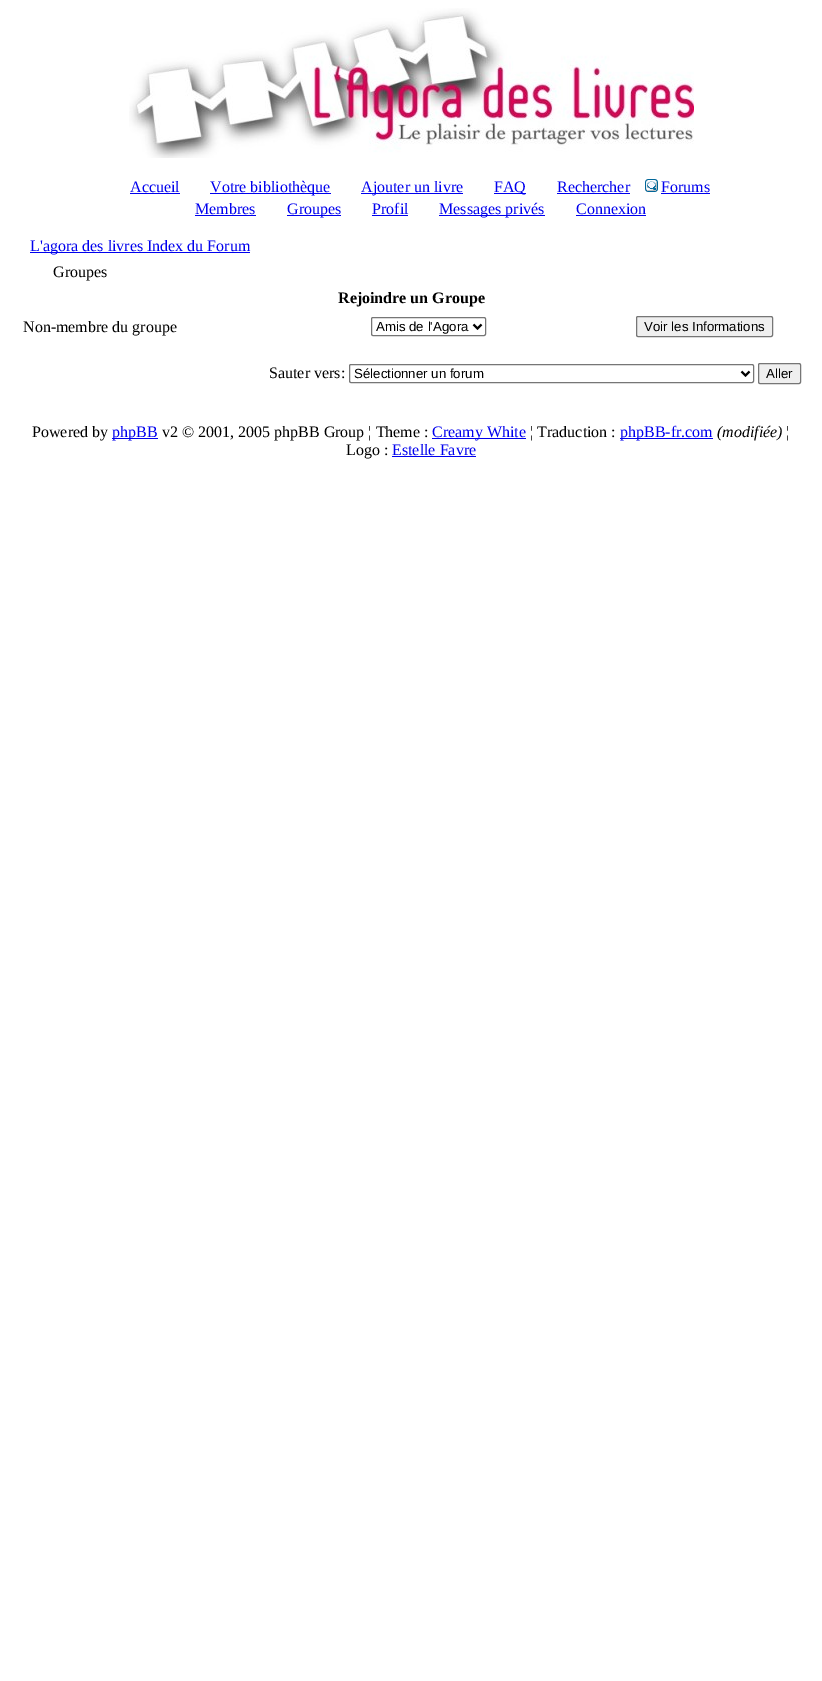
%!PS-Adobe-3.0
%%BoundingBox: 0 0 822 1681
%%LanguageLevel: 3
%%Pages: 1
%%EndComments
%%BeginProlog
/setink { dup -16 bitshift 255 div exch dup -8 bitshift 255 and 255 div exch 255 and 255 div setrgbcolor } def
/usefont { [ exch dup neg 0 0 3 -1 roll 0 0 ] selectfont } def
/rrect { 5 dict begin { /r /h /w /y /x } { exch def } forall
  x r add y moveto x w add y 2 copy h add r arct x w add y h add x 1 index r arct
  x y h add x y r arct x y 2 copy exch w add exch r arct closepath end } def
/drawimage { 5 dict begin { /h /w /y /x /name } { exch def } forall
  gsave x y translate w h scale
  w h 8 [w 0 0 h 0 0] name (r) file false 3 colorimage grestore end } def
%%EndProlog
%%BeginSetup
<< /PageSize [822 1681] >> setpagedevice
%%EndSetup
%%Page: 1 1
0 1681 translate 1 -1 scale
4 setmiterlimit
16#FFFFFF setink
0 0 822 1681 rectfill
(img1.raw) 129 8 565 150 drawimage
/LiberationSerif-Regular 16 usefont
16#0000EE setink
130 192 moveto (Accueil) show
130 193 50 1 rectfill
210 193 121 1 rectfill
210 192 moveto (Votre bibliothèque) show
361 193 102 1 rectfill
361 192 moveto (Ajouter un livre) show
494 193 32 1 rectfill
494 192 moveto (FAQ) show
557 192 moveto (Rechercher) show
557 193 73 1 rectfill
(img2.raw) 645 179 13 13 drawimage
661 192 moveto (Forums) show
661 193 49 1 rectfill
195 214 moveto (Membres) show
195 215 61 1 rectfill
287 215 54 1 rectfill
287 214 moveto (Groupes) show
372 214 moveto (Profil) show
372 215 36 1 rectfill
439 215 106 1 rectfill
439 214 moveto (Messages privés) show
576 214 moveto (Connexion) show
576 215 70 1 rectfill
30 252 220 1 rectfill
30 251 moveto (L'agora des livres Index du Forum) show
16#000000 setink
53 277 moveto (Groupes) show
/LiberationSerif-Bold 16 usefont
338 303 moveto (Rejoindre un Groupe) show
/LiberationSerif-Regular 16 usefont
23 332 moveto (Non-membre du groupe) show
16#767676 setink
371.5 317.5 114 18 1.5 rrect stroke
16#000000 setink
2 setlinewidth
473.5 324.5 moveto 477.5 328.5 lineto 481.5 324.5 lineto stroke
/LiberationSans-Regular 13.25 usefont
376 331 moveto (Amis de l'Agora) show
16#EFEFEF setink
636.5 316.5 136 20 1.5 rrect gsave fill grestore
16#767676 setink
1 setlinewidth
stroke
16#000000 setink
644 331 moveto (Voir les Informations) show
/LiberationSerif-Regular 16 usefont
269 378 moveto (Sauter vers:) show
16#767676 setink
349.5 364.5 404 18 1.5 rrect stroke
16#000000 setink
2 setlinewidth
741.5 371.5 moveto 745.5 375.5 lineto 749.5 371.5 lineto stroke
/LiberationSans-Regular 13.25 usefont
354 378 moveto (Sélectionner un forum) show
16#EFEFEF setink
758.5 363.5 42 20 1.5 rrect gsave fill grestore
16#767676 setink
1 setlinewidth
stroke
16#000000 setink
766 378 moveto (Aller) show
/LiberationSerif-Regular 16 usefont
32 437 moveto (Powered by) show
16#0000EE setink
112 438 46 1 rectfill
112 437 moveto (phpBB) show
16#000000 setink
162 437 moveto (v2 © 2001, 2005 phpBB Group ¦ Theme :) show
16#0000EE setink
432 438 94 1 rectfill
432 437 moveto (Creamy White) show
16#000000 setink
530 437 moveto (¦ Traduction :) show
16#0000EE setink
620 438 93 1 rectfill
620 437 moveto (phpBB-fr.com) show
/LiberationSerif-Italic 16 usefont
16#000000 setink
717 437 moveto (\(modifiée\)) show
/LiberationSerif-Regular 16 usefont
786 437 moveto (¦) show
346 455 moveto (Logo :) show
16#0000EE setink
392 455 moveto (Estelle Favre) show
392 456 84 1 rectfill
showpage
%%EOF
